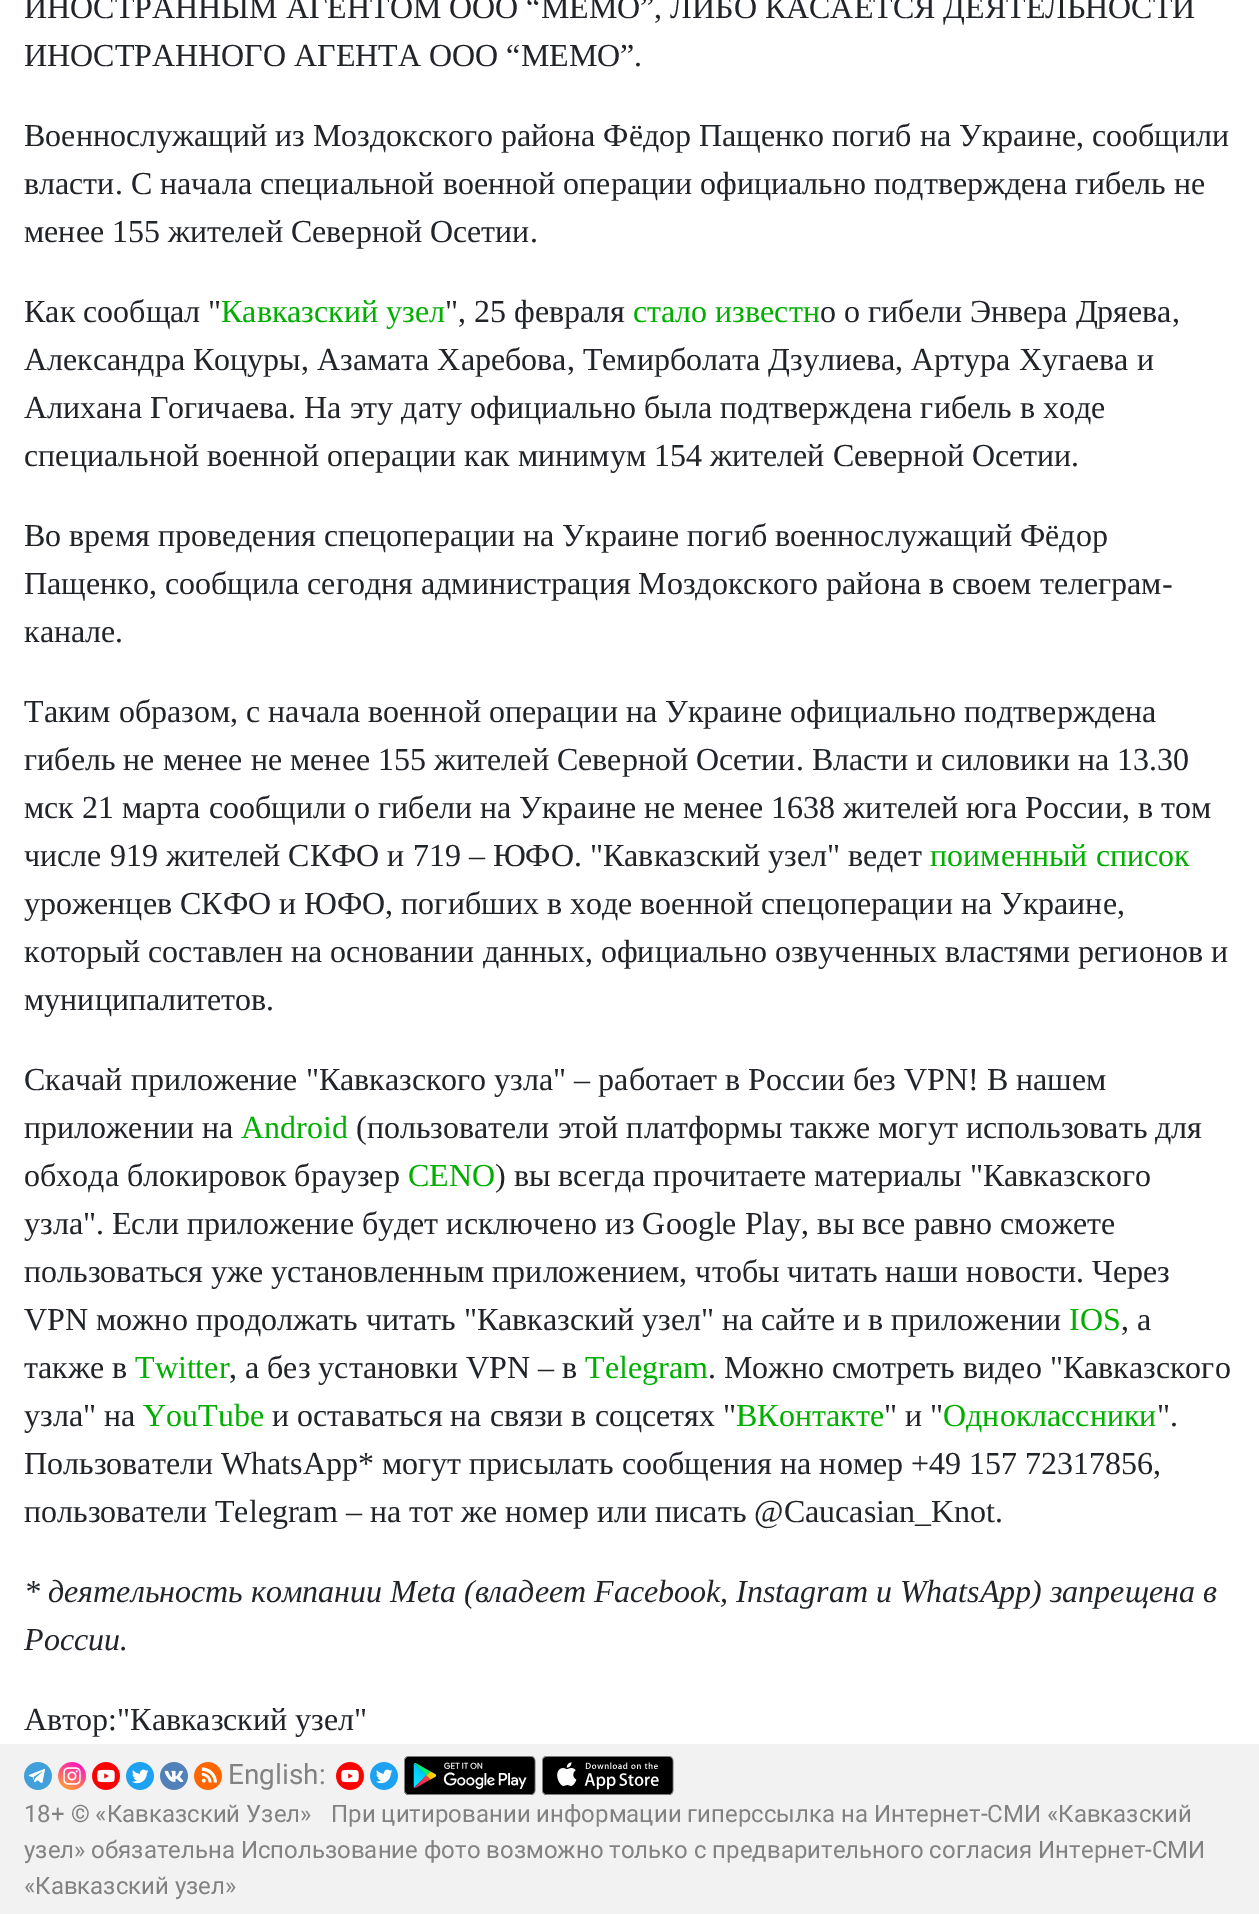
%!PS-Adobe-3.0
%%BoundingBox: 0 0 1259 1914
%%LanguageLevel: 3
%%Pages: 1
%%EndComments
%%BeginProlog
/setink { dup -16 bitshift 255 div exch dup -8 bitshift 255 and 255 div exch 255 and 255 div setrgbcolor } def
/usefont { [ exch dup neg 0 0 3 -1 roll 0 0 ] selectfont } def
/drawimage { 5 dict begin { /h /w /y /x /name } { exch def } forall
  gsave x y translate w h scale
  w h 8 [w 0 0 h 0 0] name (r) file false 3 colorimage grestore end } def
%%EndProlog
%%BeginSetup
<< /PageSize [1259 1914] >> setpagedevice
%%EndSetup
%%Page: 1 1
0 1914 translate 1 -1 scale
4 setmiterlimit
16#FFFFFF setink
0 0 1259 1914 rectfill
/LiberationSerif-Regular 32 usefont
16#212529 setink
[
    [(ИНОСТРАННЫМ АГЕНТОМ ООО “МЕМО”, ЛИБО КАСАЕТСЯ ДЕЯТЕЛЬНОСТИ) 24 18]
    [(ИНОСТРАННОГО АГЕНТА ООО “МЕМО”.) 24 66]
    [(Военнослужащий из Моздокского района Фёдор Пащенко погиб на Украине, сообщили) 24 146]
    [(власти. С начала специальной военной операции официально подтверждена гибель не) 24 194]
    [(менее 155 жителей Северной Осетии.) 24 242]
    [(Как сообщал ") 24 322]
] { aload pop moveto show } forall
16#00AE00 setink
221 322 moveto (Кавказский узел) show
16#212529 setink
445 322 moveto (", 25 февраля) show
16#00AE00 setink
633 322 moveto (стало известн) show
16#212529 setink
[
    [(о о гибели Энвера Дряева,) 820 322]
    [(Александра Коцуры, Азамата Харебова, Темирболата Дзулиева, Артура Хугаева и) 24 370]
    [(Алихана Гогичаева. На эту дату официально была подтверждена гибель в ходе) 24 418]
    [(специальной военной операции как минимум 154 жителей Северной Осетии.) 24 466]
    [(Во время проведения спецоперации на Украине погиб военнослужащий Фёдор) 24 546]
    [(Пащенко, сообщила сегодня администрация Моздокского района в своем телеграм-) 24 594]
    [(канале.) 24 642]
    [(Таким образом, с начала военной операции на Украине официально подтверждена) 24 722]
    [(гибель не менее не менее 155 жителей Северной Осетии. Власти и силовики на 13.30) 24 770]
    [(мск 21 марта сообщили о гибели на Украине не менее 1638 жителей юга России, в том) 24 818]
    [(числе 919 жителей СКФО и 719 – ЮФО. "Кавказский узел" ведет) 24 866]
] { aload pop moveto show } forall
16#00AE00 setink
930 866 moveto (поименный список) show
16#212529 setink
[
    [(уроженцев СКФО и ЮФО, погибших в ходе военной спецоперации на Украине,) 24 914]
    [(который составлен на основании данных, официально озвученных властями регионов и) 24 962]
    [(муниципалитетов.) 24 1010]
    [(Скачай приложение "Кавказского узла" – работает в России без VPN! В нашем) 24 1090]
    [(приложении на) 24 1138]
] { aload pop moveto show } forall
16#00AE00 setink
241 1138 moveto (Android) show
16#212529 setink
356 1138 moveto (\(пользователи этой платформы также могут использовать для) show
24 1186 moveto (обхода блокировок браузер) show
16#00AE00 setink
408 1186 moveto (CENO) show
16#212529 setink
[
    [(\) вы всегда прочитаете материалы "Кавказского) 495 1186]
    [(узла". Если приложение будет исключено из Google Play, вы все равно сможете) 24 1234]
    [(пользоваться уже установленным приложением, чтобы читать наши новости. Через) 24 1282]
    [(VPN можно продолжать читать "Кавказский узел" на сайте и в приложении) 24 1330]
] { aload pop moveto show } forall
16#00AE00 setink
1069 1330 moveto (IOS) show
16#212529 setink
1121 1330 moveto (, а) show
24 1378 moveto (также в) show
16#00AE00 setink
135 1378 moveto (Twitter) show
16#212529 setink
229 1378 moveto (, а без установки VPN – в) show
16#00AE00 setink
585 1378 moveto (Telegram) show
16#212529 setink
708 1378 moveto (. Можно смотреть видео "Кавказского) show
24 1426 moveto (узла" на) show
16#00AE00 setink
143 1426 moveto (YouTube) show
16#212529 setink
272 1426 moveto (и оставаться на связи в соцсетях ") show
16#00AE00 setink
736 1426 moveto (ВКонтакте) show
16#212529 setink
884 1426 moveto (" и ") show
16#00AE00 setink
943 1426 moveto (Одноклассники) show
16#212529 setink
[
    [(".) 1157 1426]
    [(Пользователи WhatsApp* могут присылать сообщения на номер +49 157 72317856,) 24 1474]
    [(пользователи Telegram – на тот же номер или писать @Caucasian_Knot.) 24 1522]
] { aload pop moveto show } forall
/LiberationSerif-Italic 32 usefont
24 1602 moveto (* деятельность компании Meta \(владеет Facebook, Instagram и WhatsApp\) запрещена в) show
24 1650 moveto (России.) show
/LiberationSerif-Regular 32 usefont
24 1730 moveto (Автор:"Кавказский узел") show
16#F2F2F2 setink
0 1744 1259 170 rectfill
(img1.raw) 24 1762 28 28 drawimage
(img2.raw) 58 1762 28 28 drawimage
(img3.raw) 92 1762 28 28 drawimage
(img4.raw) 126 1762 28 28 drawimage
(img5.raw) 160 1762 28 28 drawimage
(img6.raw) 194 1762 28 28 drawimage
/Roboto-Regular 28 usefont
16#828282 setink
228 1784 moveto (English:) show
(img3.raw) 336 1762 28 28 drawimage
(img4.raw) 370 1762 28 28 drawimage
(img7.raw) 404 1756 132 39 drawimage
(img8.raw) 542 1756 132 39 drawimage
/Roboto-Regular 24 usefont
[
    [(18+ © «Кавказский Узел») 24 1822]
    [(При цитировании информации гиперссылка на Интернет-СМИ «Кавказский) 331 1822]
    [(узел» обязательна Использование фото возможно только с предварительного согласия Интернет-СМИ) 24 1858]
    [(«Кавказский узел») 24 1894]
] { aload pop moveto show } forall
showpage
%%EOF
